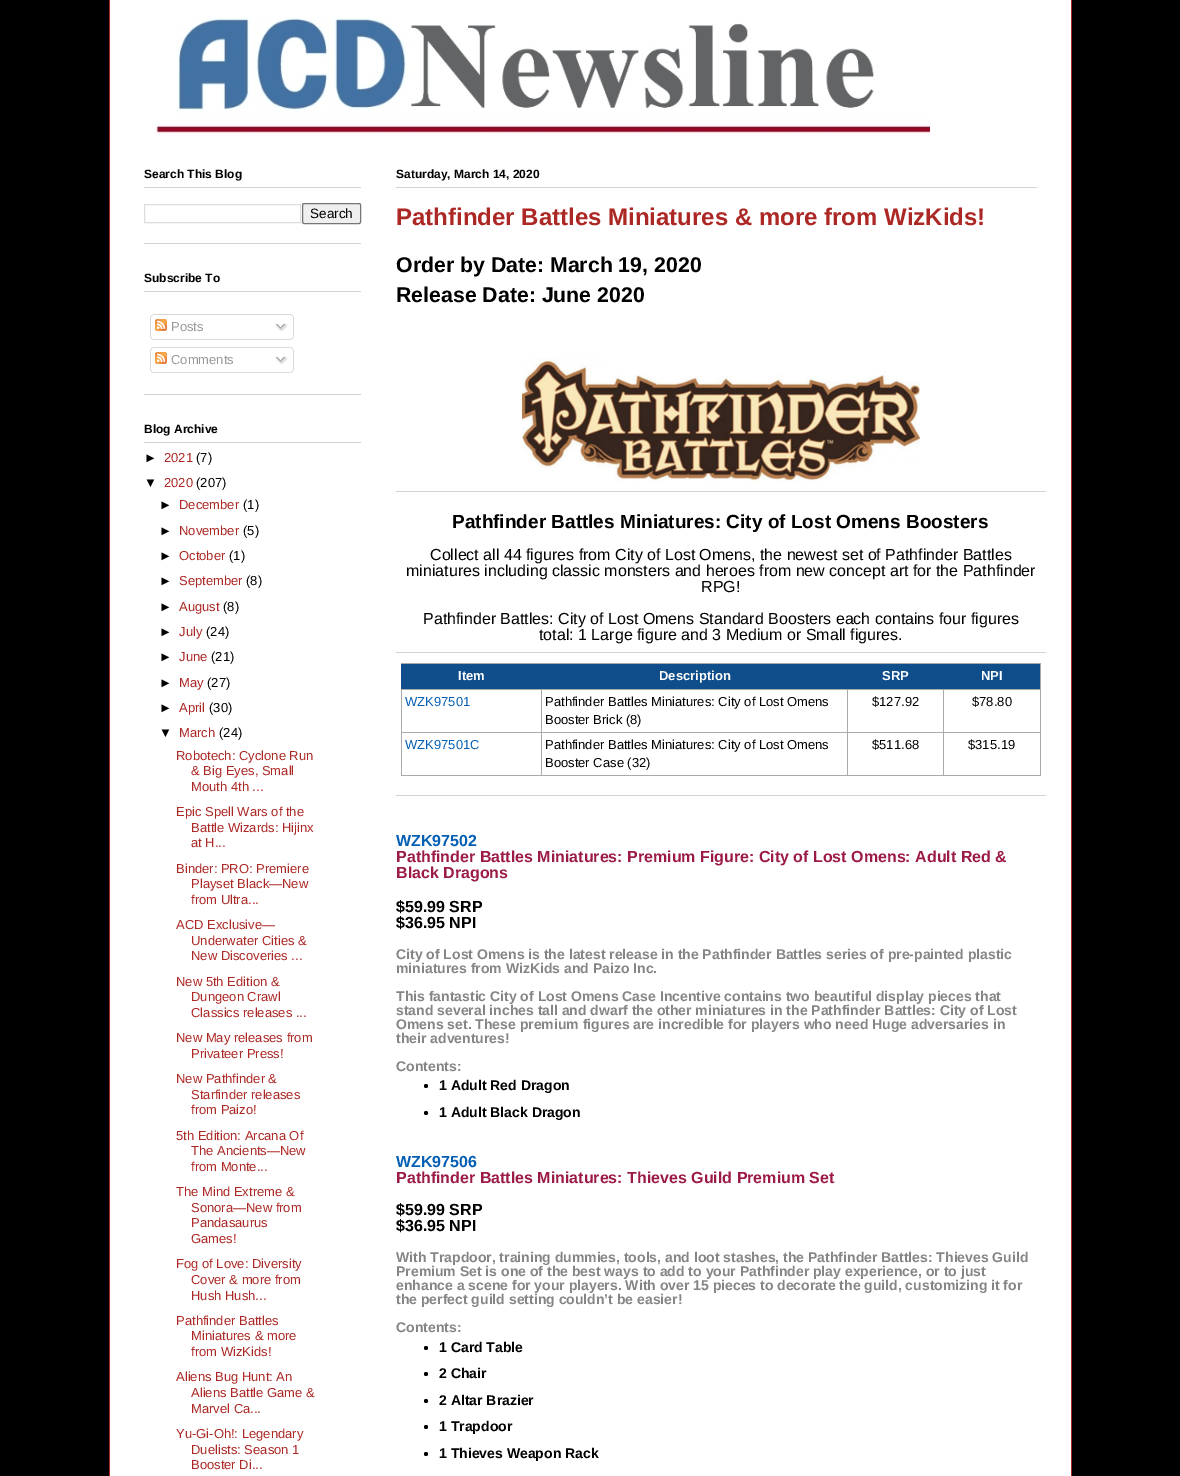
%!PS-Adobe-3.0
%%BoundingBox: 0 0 1180 1476
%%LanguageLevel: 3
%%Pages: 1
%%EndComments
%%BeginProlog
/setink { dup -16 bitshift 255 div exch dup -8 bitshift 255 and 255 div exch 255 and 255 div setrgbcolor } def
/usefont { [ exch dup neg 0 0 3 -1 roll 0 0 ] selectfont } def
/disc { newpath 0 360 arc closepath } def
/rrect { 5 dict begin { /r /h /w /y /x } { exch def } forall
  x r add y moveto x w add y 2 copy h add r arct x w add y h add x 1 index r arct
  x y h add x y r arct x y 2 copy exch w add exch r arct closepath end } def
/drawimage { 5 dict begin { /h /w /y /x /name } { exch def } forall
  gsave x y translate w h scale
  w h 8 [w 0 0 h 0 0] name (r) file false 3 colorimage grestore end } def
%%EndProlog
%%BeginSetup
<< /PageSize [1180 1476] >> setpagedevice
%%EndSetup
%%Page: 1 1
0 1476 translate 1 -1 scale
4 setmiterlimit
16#000000 setink
0 0 1180 1476 rectfill
[
    [110 0 961 1476 16#FFFFFF]
    [1071 0 1 1476 16#AC2824]
    [109 0 1 1476 16#AC2824]
] { aload pop setink rectfill } forall
(img1.raw) 155 17 775 117 drawimage
16#D3D3D3 setink
144 243 217 1 rectfill
144 187 217 1 rectfill
/LiberationSans-Bold 12 usefont
16#000000 setink
144 178 moveto (Search This Blog) show
16#DDDDDD setink
144.5 204.5 156 18 rectstroke
16#EFEFEF setink
302.5 203.5 58 20 1.5 rrect gsave fill grestore
16#767676 setink
stroke
/LiberationSans-Regular 13.5 usefont
16#000000 setink
310 218 moveto (Search) show
16#D3D3D3 setink
144 394 217 1 rectfill
144 291 217 1 rectfill
/LiberationSans-Bold 12 usefont
16#000000 setink
144 282 moveto (Subscribe To) show
(img2.raw) 150 314 144 23 drawimage
(img3.raw) 155 319 12 12 drawimage
/LiberationSans-Regular 13 usefont
16#999999 setink
171 331 moveto (Posts) show
(img4.raw) 275 323 13 9 drawimage
(img5.raw) 150 337 144 3 drawimage
(img2.raw) 150 347 144 23 drawimage
(img3.raw) 155 352 12 12 drawimage
171 364 moveto (Comments) show
(img4.raw) 275 356 13 9 drawimage
(img5.raw) 150 370 144 3 drawimage
16#D3D3D3 setink
144 442 217 1 rectfill
/LiberationSans-Bold 12 usefont
16#000000 setink
144 433 moveto (Blog Archive) show
/LiberationSans-Regular 13 usefont
144 462 moveto (►) show
16#AC2824 setink
164 462 moveto (2021) show
16#000000 setink
196 462 moveto (\(7\)) show
144 487 moveto (▼) show
16#AC2824 setink
164 487 moveto (2020) show
16#000000 setink
196 487 moveto (\(207\)) show
159 509 moveto (►) show
16#AC2824 setink
179 509 moveto (December) show
16#000000 setink
243 509 moveto (\(1\)) show
159 535 moveto (►) show
16#AC2824 setink
179 535 moveto (November) show
16#000000 setink
243 535 moveto (\(5\)) show
159 560 moveto (►) show
16#AC2824 setink
179 560 moveto (October) show
16#000000 setink
229 560 moveto (\(1\)) show
159 585 moveto (►) show
16#AC2824 setink
179 585 moveto (September) show
16#000000 setink
246 585 moveto (\(8\)) show
159 611 moveto (►) show
16#AC2824 setink
179 611 moveto (August) show
16#000000 setink
223 611 moveto (\(8\)) show
159 636 moveto (►) show
16#AC2824 setink
179 636 moveto (July) show
16#000000 setink
206 636 moveto (\(24\)) show
159 661 moveto (►) show
16#AC2824 setink
179 661 moveto (June) show
16#000000 setink
211 661 moveto (\(21\)) show
159 687 moveto (►) show
16#AC2824 setink
179 687 moveto (May) show
16#000000 setink
207 687 moveto (\(27\)) show
159 712 moveto (►) show
16#AC2824 setink
179 712 moveto (April) show
16#000000 setink
209 712 moveto (\(30\)) show
159 737 moveto (▼) show
16#AC2824 setink
179 737 moveto (March) show
16#000000 setink
219 737 moveto (\(24\)) show
16#AC2824 setink
[
    [(Robotech: Cyclone Run) 176 760]
    [(& Big Eyes, Small) 191 775]
    [(Mouth 4th ...) 191 791]
    [(Epic Spell Wars of the) 176 816]
    [(Battle Wizards: Hijinx) 191 832]
    [(at H...) 191 847]
    [(Binder: PRO: Premiere) 176 873]
    [(Playset Black—New) 191 888]
    [(from Ultra...) 191 904]
    [(ACD Exclusive—) 176 929]
    [(Underwater Cities &) 191 945]
    [(New Discoveries ...) 191 960]
    [(New 5th Edition &) 176 986]
    [(Dungeon Crawl) 191 1001]
    [(Classics releases ...) 191 1017]
    [(New May releases from) 176 1042]
    [(Privateer Press!) 191 1058]
    [(New Pathfinder &) 176 1083]
    [(Starfinder releases) 191 1099]
    [(from Paizo!) 191 1114]
    [(5th Edition: Arcana Of) 176 1140]
    [(The Ancients—New) 191 1155]
    [(from Monte...) 191 1171]
    [(The Mind Extreme &) 176 1196]
    [(Sonora—New from) 191 1212]
    [(Pandasaurus) 191 1227]
    [(Games!) 191 1243]
    [(Fog of Love: Diversity) 176 1268]
    [(Cover & more from) 191 1284]
    [(Hush Hush...) 191 1300]
    [(Pathfinder Battles) 176 1325]
    [(Miniatures & more) 191 1340]
    [(from WizKids!) 191 1356]
    [(Aliens Bug Hunt: An) 176 1381]
    [(Aliens Battle Game &) 191 1397]
    [(Marvel Ca...) 191 1413]
    [(Yu-Gi-Oh!: Legendary) 176 1438]
    [(Duelists: Season 1) 191 1454]
    [(Booster Di...) 191 1469]
] { aload pop moveto show } forall
16#D3D3D3 setink
396 187 641 1 rectfill
/LiberationSans-Bold 12 usefont
16#000000 setink
396 178 moveto (Saturday, March 14, 2020) show
/LiberationSans-Bold 24 usefont
16#AC2824 setink
396 225 moveto (Pathfinder Battles Miniatures & more from WizKids!) show
/LiberationSans-Bold 21.3 usefont
16#000000 setink
396 272 moveto (Order by Date: March 19, 2020) show
396 302 moveto (Release Date: June 2020) show
16#D3D3D3 setink
396 491 650 1 rectfill
(img6.raw) 522 358 398 126 drawimage
396 652 650 1 rectfill
/LiberationSans-Bold 19 usefont
16#000000 setink
452 528 moveto (Pathfinder Battles Miniatures: City of Lost Omens Boosters) show
/LiberationSans-Regular 16 usefont
[
    [(Collect all 44 figures from City of Lost Omens, the newest set of Pathfinder Battles) 430 560]
    [(miniatures including classic monsters and heroes from new concept art for the Pathfinder) 406 576]
    [(RPG!) 701 592]
    [(Pathfinder Battles: City of Lost Omens Standard Boosters each contains four figures) 423 624]
    [(total: 1 Large figure and 3 Medium or Small figures.) 539 640]
] { aload pop moveto show } forall
[
    [396 795 650 1 16#D3D3D3]
    [401 663 640 1 16#AAAAAA]
    [943 689 98 1 16#AAAAAA]
    [943 732 98 1 16#AAAAAA]
    [1040 732 1 44 16#AAAAAA]
    [943 775 98 1 16#AAAAAA]
    [943 732 1 44 16#AAAAAA]
    [847 732 97 1 16#AAAAAA]
    [943 689 1 44 16#AAAAAA]
    [847 689 97 1 16#AAAAAA]
    [847 775 97 1 16#AAAAAA]
    [847 732 1 44 16#AAAAAA]
    [541 732 307 1 16#AAAAAA]
    [847 689 1 44 16#AAAAAA]
    [541 689 307 1 16#AAAAAA]
    [541 775 307 1 16#AAAAAA]
    [541 732 1 44 16#AAAAAA]
    [401 732 141 1 16#AAAAAA]
    [541 689 1 44 16#AAAAAA]
    [401 689 141 1 16#AAAAAA]
    [401 775 141 1 16#AAAAAA]
    [401 732 1 44 16#AAAAAA]
    [401 689 1 44 16#AAAAAA]
    [401 663 1 27 16#AAAAAA]
    [401 664 639 25 16#104E8B]
] { aload pop setink rectfill } forall
/LiberationSans-Bold 13 usefont
16#FFFFFF setink
[
    [(Item) 458 680]
    [(Description) 659 680]
    [(SRP) 882 680]
] { aload pop moveto show } forall
16#AAAAAA setink
1040 689 1 44 rectfill
1040 663 1 27 rectfill
16#FFFFFF setink
981 680 moveto (NPI) show
/LiberationSans-Regular 13 usefont
16#045FB4 setink
405 706 moveto (WZK97501) show
16#000000 setink
[
    [(Pathfinder Battles Miniatures: City of Lost Omens) 545 706]
    [(Booster Brick \(8\)) 545 724]
    [($127.92) 872 706]
    [($78.80) 972 706]
] { aload pop moveto show } forall
16#045FB4 setink
405 749 moveto (WZK97501C) show
16#000000 setink
[
    [(Pathfinder Battles Miniatures: City of Lost Omens) 545 749]
    [(Booster Case \(32\)) 545 767]
    [($511.68) 872 749]
    [($315.19) 968 749]
] { aload pop moveto show } forall
/LiberationSans-Bold 16 usefont
16#045FB4 setink
396 846 moveto (WZK97502) show
16#9C1B45 setink
396 862 moveto (Pathfinder Battles Miniatures: Premium Figure: City of Lost Omens: Adult Red &) show
396 878 moveto (Black Dragons) show
16#000000 setink
396 912 moveto ($59.99 SRP) show
396 928 moveto ($36.95 NPI) show
/LiberationSans-Bold 14 usefont
16#858585 setink
[
    [(City of Lost Omens is the latest release in the Pathfinder Battles series of pre-painted plastic) 396 959]
    [(miniatures from WizKids and Paizo Inc.) 396 973]
    [(This fantastic City of Lost Omens Case Incentive contains two beautiful display pieces that) 396 1001]
    [(stand several inches tall and dwarf the other miniatures in the Pathfinder Battles: City of Lost) 396 1015]
    [(Omens set. These premium figures are incredible for players who need Huge adversaries in) 396 1029]
    [(their adventures!) 396 1043]
    [(Contents:) 396 1071]
] { aload pop moveto show } forall
16#000000 setink
426 1086 2 disc fill
439 1090 moveto (1 Adult Red Dragon) show
426 1113 2 disc fill
439 1117 moveto (1 Adult Black Dragon) show
/LiberationSans-Bold 16 usefont
16#045FB4 setink
396 1167 moveto (WZK97506) show
16#9C1B45 setink
396 1183 moveto (Pathfinder Battles Miniatures: Thieves Guild Premium Set) show
16#000000 setink
396 1215 moveto ($59.99 SRP) show
396 1231 moveto ($36.95 NPI) show
/LiberationSans-Bold 14 usefont
16#858585 setink
[
    [(With Trapdoor, training dummies, tools, and loot stashes, the Pathfinder Battles: Thieves Guild) 396 1262]
    [(Premium Set is one of the best ways to add to your Pathfinder play experience, or to just) 396 1276]
    [(enhance a scene for your players. With over 15 pieces to decorate the guild, customizing it for) 396 1290]
    [(the perfect guild setting couldn’t be easier!) 396 1304]
    [(Contents:) 396 1332]
] { aload pop moveto show } forall
16#000000 setink
426 1348 2 disc fill
439 1352 moveto (1 Card Table) show
426 1374 2 disc fill
439 1378 moveto (2 Chair) show
426 1401 2 disc fill
439 1405 moveto (2 Altar Brazier) show
426 1427 2 disc fill
439 1431 moveto (1 Trapdoor) show
426 1454 2 disc fill
439 1458 moveto (1 Thieves Weapon Rack) show
showpage
%%EOF
